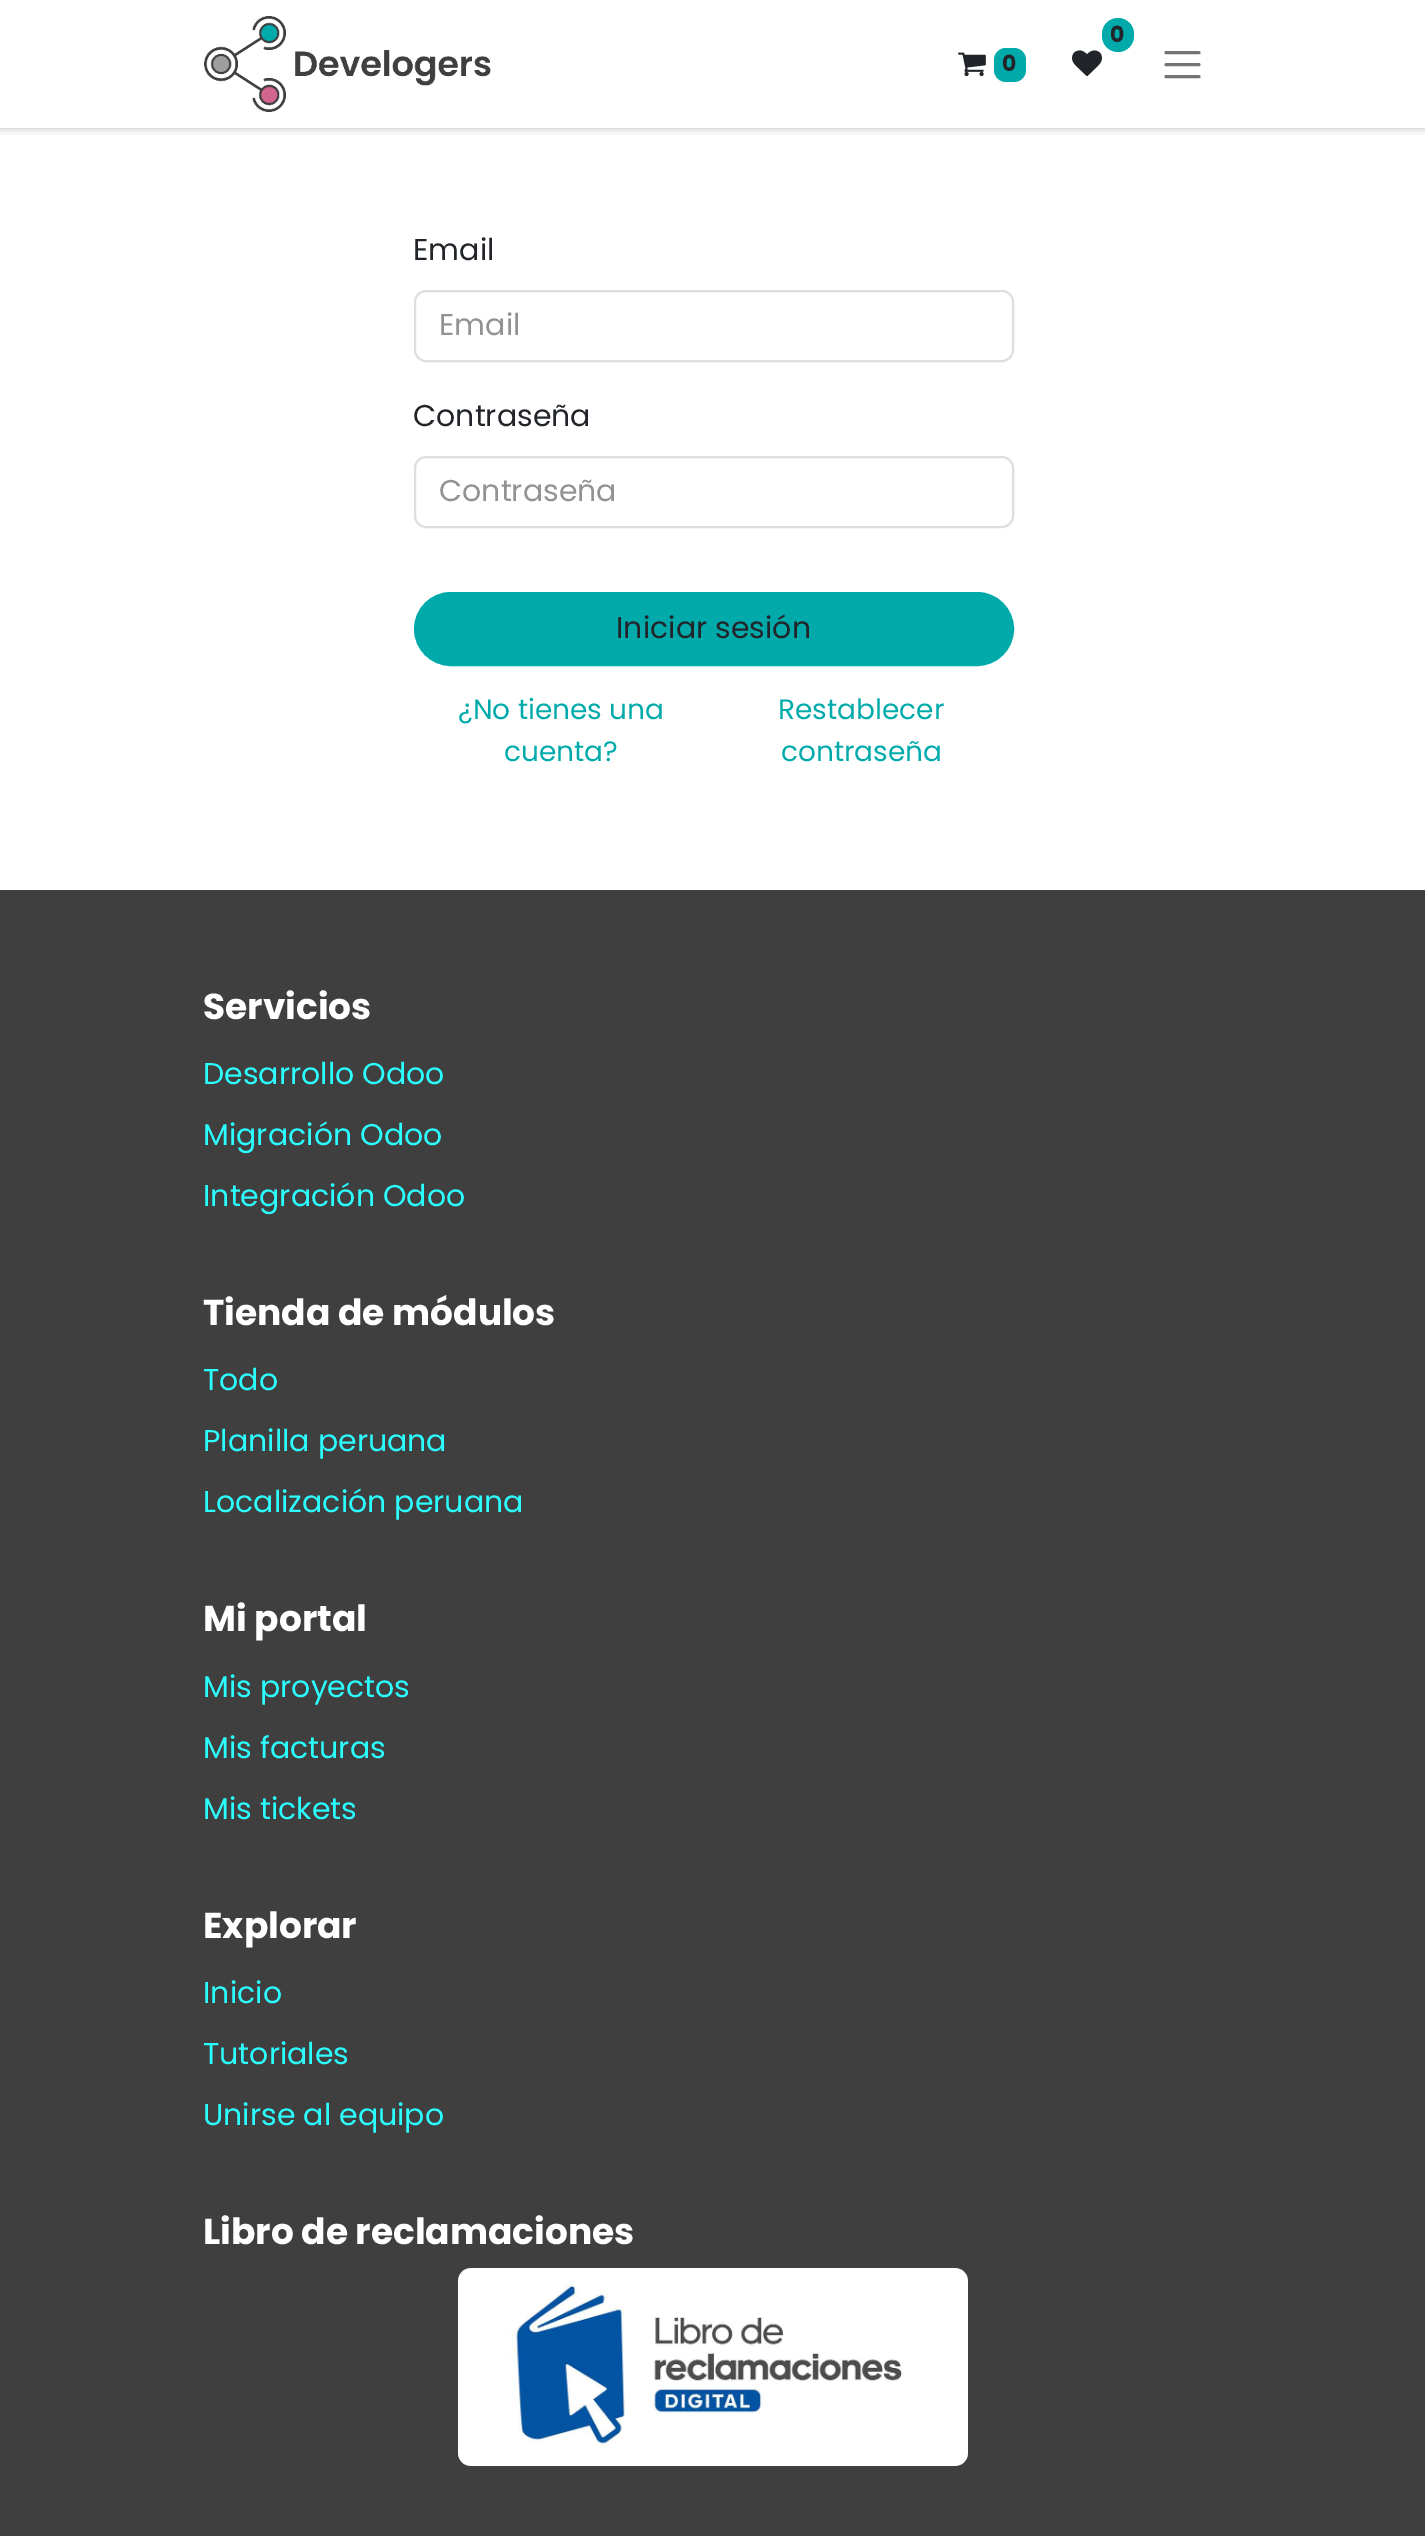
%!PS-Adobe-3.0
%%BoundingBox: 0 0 1425 2536
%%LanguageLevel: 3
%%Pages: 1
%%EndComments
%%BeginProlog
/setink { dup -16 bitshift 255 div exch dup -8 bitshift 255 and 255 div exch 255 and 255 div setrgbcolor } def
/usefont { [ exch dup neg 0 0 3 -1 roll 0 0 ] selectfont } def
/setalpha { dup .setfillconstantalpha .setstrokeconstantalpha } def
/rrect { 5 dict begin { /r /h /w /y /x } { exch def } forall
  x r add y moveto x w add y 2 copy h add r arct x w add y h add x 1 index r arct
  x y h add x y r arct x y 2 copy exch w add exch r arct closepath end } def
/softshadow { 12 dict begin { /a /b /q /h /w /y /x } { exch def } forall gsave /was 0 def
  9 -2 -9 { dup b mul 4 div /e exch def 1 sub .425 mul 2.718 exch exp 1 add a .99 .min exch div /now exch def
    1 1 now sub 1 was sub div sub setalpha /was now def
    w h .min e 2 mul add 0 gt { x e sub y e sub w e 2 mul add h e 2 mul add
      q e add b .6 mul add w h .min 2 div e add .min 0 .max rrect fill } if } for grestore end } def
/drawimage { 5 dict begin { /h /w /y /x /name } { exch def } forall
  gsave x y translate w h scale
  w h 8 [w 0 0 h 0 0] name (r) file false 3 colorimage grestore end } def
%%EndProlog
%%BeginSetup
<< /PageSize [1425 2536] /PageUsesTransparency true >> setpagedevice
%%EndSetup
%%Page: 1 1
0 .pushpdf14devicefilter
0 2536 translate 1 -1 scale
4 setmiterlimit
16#FFFFFF setink
0 0 1425 2536 rectfill
gsave
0 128 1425 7 rectclip
16#000000 setink
0 0 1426 128 0 5 0.25 softshadow
grestore
(img1.raw) 204 16 287 96 drawimage
16#00AAAA setink
1102 18 32 34 16 rrect fill
/Poppins-Bold 22 usefont
16#212529 setink
1110 42 moveto (0) show
(img2.raw) 1072 50 30 27 drawimage
(img3.raw) 958 52 28 25 drawimage
16#00AAAA setink
994 48 32 34 12 rrect fill
16#212529 setink
1002 71 moveto (0) show
16#737373 setink
3 setlinewidth
1 setlinecap
1166 52.5 moveto 1199 52.5 lineto 1166 64.5 moveto 1199 64.5 lineto 1166 76.5 moveto 1199 76.5 lineto stroke
/Poppins-Regular 30 usefont
16#212529 setink
413 260 moveto (Email) show
16#DEDEDF setink
2 setlinewidth
0 setlinecap
415 291 598 70 11 rrect stroke
16#909294 setink
439 335 moveto (Email) show
16#212529 setink
413 426 moveto (Contraseña) show
16#DEDEDF setink
415 457 598 70 11 rrect stroke
16#909294 setink
439 501 moveto (Contraseña) show
16#00AAAA setink
415 593 598 72 36 rrect gsave fill grestore
stroke
16#212529 setink
616 638 moveto (Iniciar sesión) show
/Poppins-Regular 28 usefont
16#00AAAA setink
[
    [(¿No tienes una) 458 719]
    [(cuenta?) 504 761]
    [(Restablecer) 778 719]
    [(contraseña) 781 761]
] { aload pop moveto show } forall
16#3F3F3F setink
0 890 1425 1646 rectfill
/Poppins-Bold 36 usefont
16#FFFFFF setink
203 1019 moveto (Servicios) show
/Poppins-Regular 30 usefont
16#2BFFFF setink
[
    [(Desarrollo Odoo) 203 1084]
    [(Migración Odoo) 203 1145]
    [(Integración Odoo) 203 1206]
] { aload pop moveto show } forall
/Poppins-Bold 36 usefont
16#FFFFFF setink
203 1325 moveto (Tienda de módulos) show
/Poppins-Regular 30 usefont
16#2BFFFF setink
[
    [(Todo) 203 1390]
    [(Planilla peruana) 203 1451]
    [(Localización peruana) 203 1512]
] { aload pop moveto show } forall
/Poppins-Bold 36 usefont
16#FFFFFF setink
203 1631 moveto (Mi portal) show
/Poppins-Regular 30 usefont
16#2BFFFF setink
[
    [(Mis proyectos) 203 1697]
    [(Mis facturas) 203 1758]
    [(Mis tickets) 203 1819]
] { aload pop moveto show } forall
/Poppins-Bold 36 usefont
16#FFFFFF setink
203 1938 moveto (Explorar) show
/Poppins-Regular 30 usefont
16#2BFFFF setink
[
    [(Inicio) 203 2003]
    [(Tutoriales) 203 2064]
    [(Unirse al equipo) 203 2125]
] { aload pop moveto show } forall
/Poppins-Bold 36 usefont
16#FFFFFF setink
203 2244 moveto (Libro de reclamaciones) show
(img4.raw) 458 2268 510 198 drawimage
.poppdf14devicefilter showpage
%%EOF
